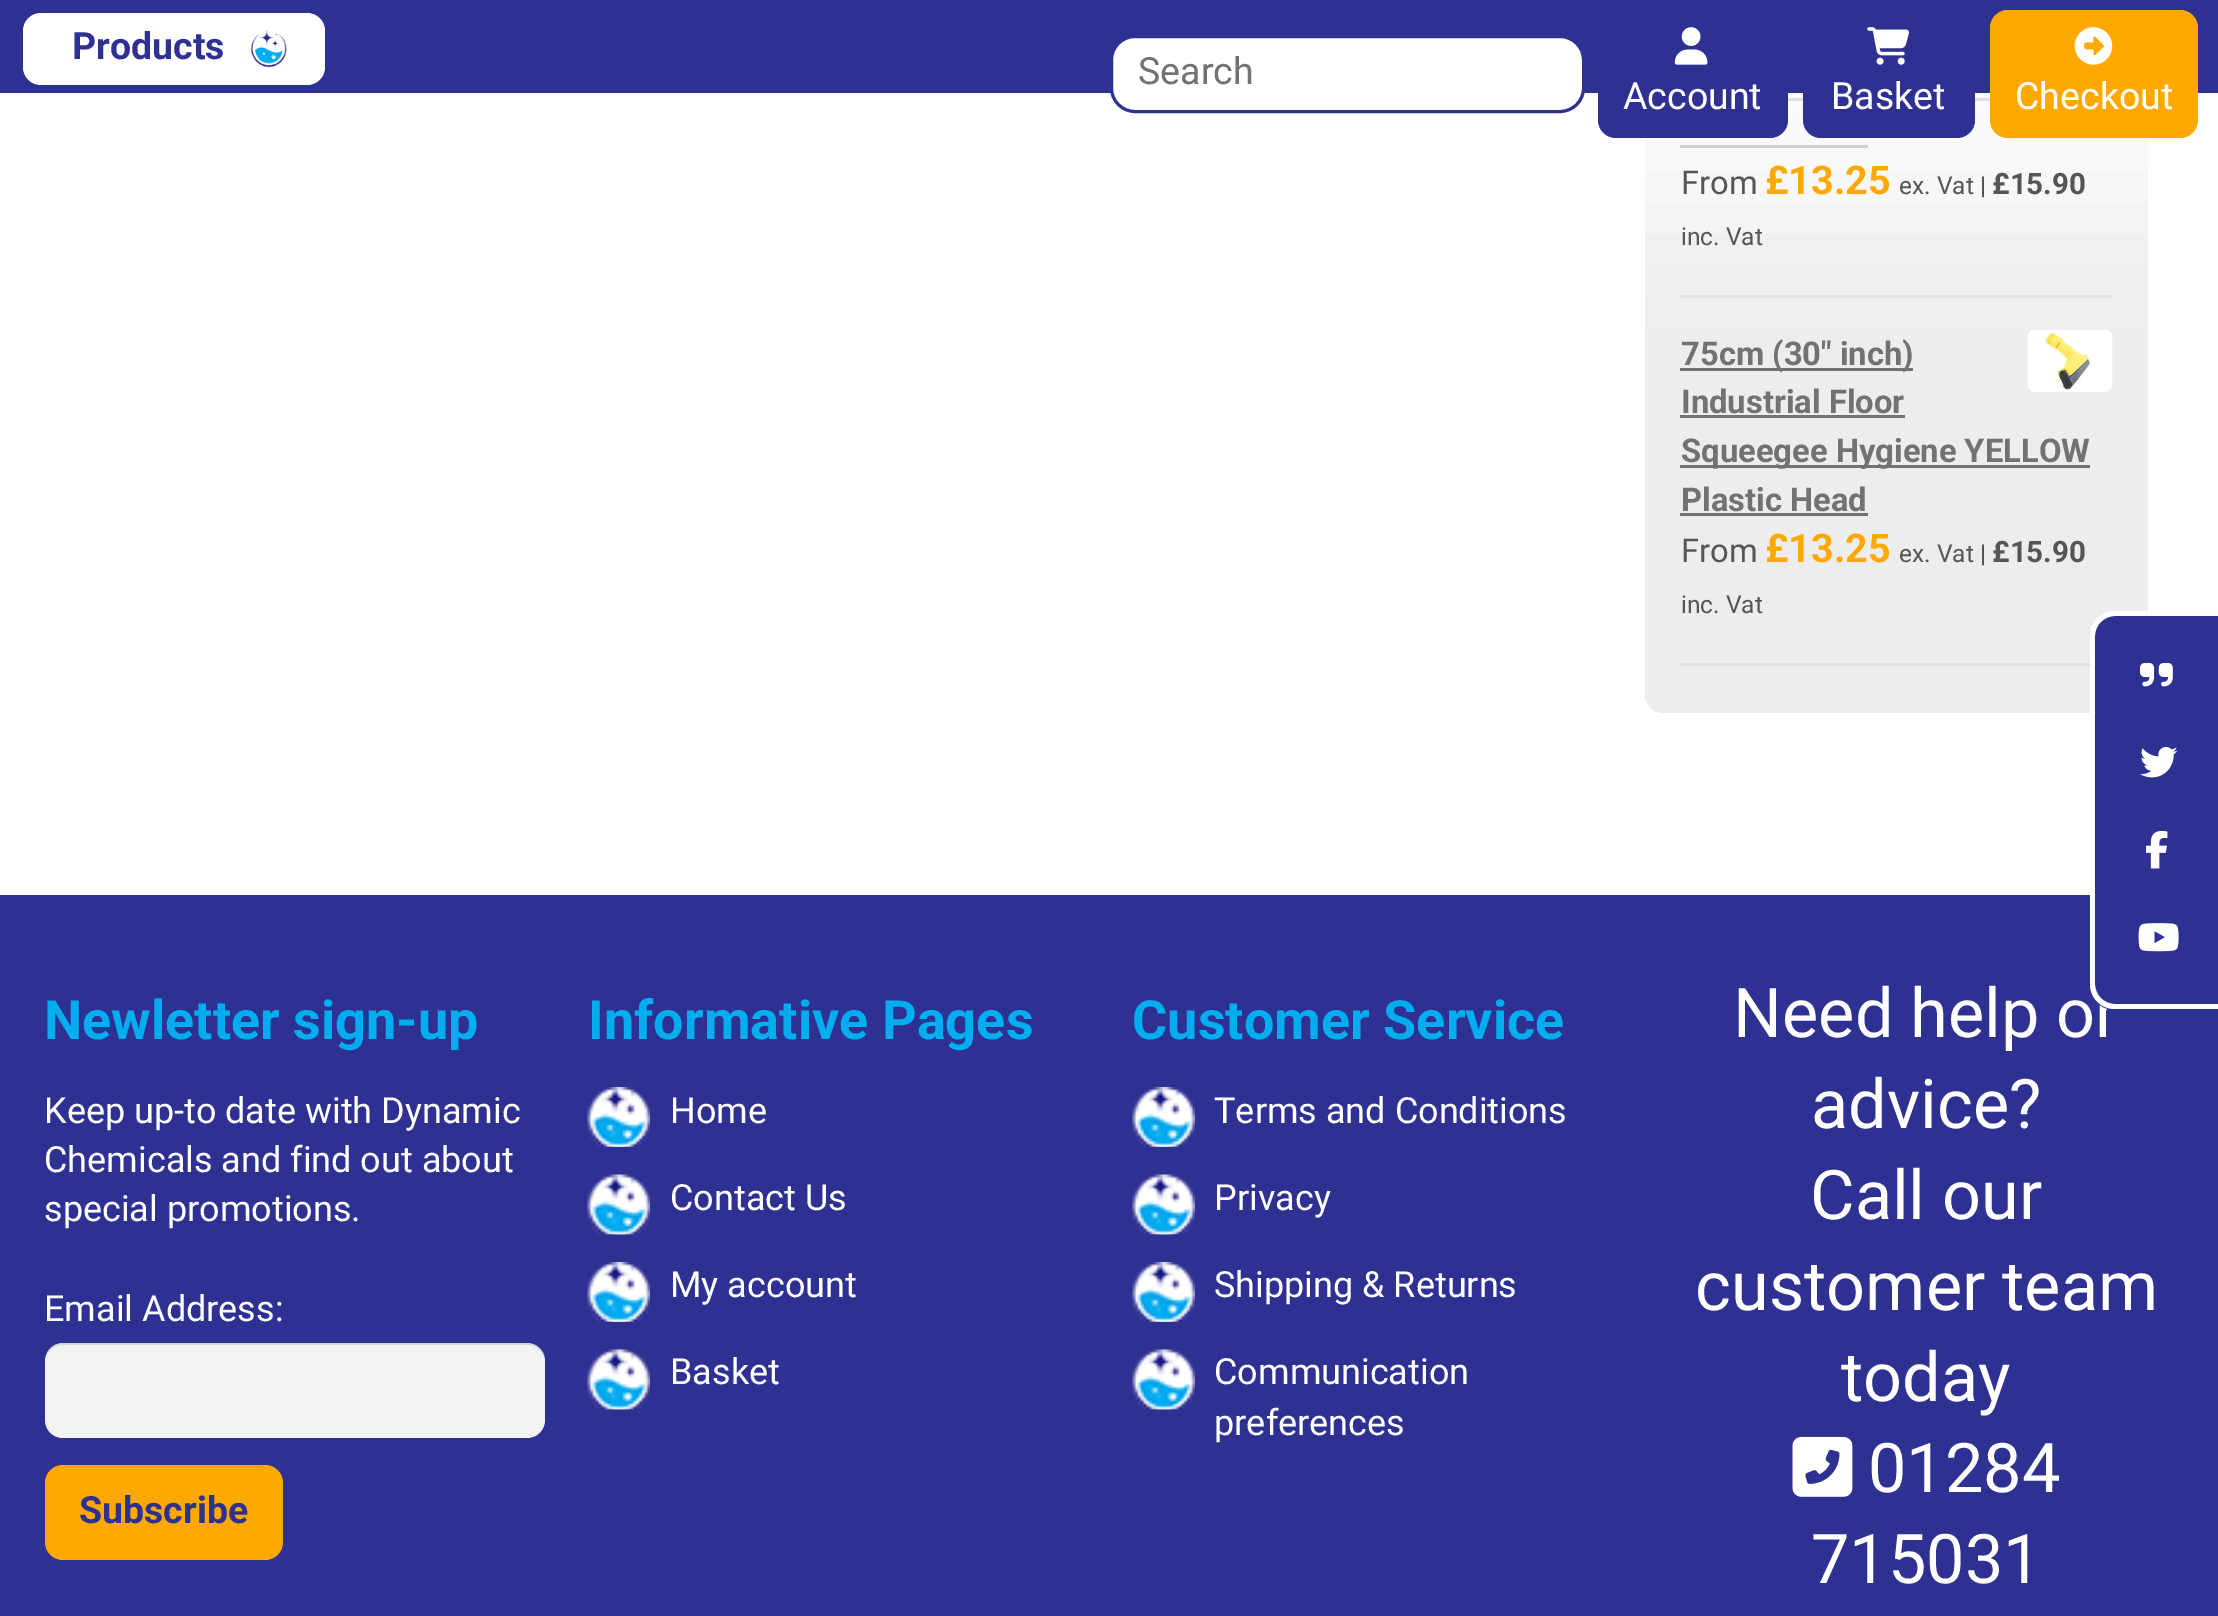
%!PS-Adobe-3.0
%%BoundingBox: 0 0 2218 1616
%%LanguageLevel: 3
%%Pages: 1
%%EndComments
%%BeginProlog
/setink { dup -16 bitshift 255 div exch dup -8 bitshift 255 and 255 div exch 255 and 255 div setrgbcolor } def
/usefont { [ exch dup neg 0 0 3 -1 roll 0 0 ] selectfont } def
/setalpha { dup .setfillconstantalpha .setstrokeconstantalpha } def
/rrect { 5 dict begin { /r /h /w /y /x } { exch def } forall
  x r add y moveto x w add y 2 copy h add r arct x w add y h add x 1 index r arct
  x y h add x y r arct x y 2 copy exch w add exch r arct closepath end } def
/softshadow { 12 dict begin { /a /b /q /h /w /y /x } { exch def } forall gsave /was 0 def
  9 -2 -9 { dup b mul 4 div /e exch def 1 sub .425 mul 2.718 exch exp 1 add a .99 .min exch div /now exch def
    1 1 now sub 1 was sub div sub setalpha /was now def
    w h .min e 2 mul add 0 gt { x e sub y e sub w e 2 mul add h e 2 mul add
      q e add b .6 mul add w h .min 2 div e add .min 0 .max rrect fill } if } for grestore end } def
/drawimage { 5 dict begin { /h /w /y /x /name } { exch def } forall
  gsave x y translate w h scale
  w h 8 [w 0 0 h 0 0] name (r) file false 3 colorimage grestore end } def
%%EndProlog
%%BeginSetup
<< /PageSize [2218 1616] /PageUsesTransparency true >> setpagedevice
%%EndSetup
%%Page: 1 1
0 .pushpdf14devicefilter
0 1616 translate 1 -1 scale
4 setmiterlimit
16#FFFFFF setink
0 0 2218 1616 rectfill
16#EDEDED setink
1645 -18 503 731 18 rrect fill
[
    [1680 295 433 3 16#E1E1E1]
    [1788 98 202 3 16#727272]
    [1680 145 188 3 16#727272]
    [1680 368 233 3 16#727272]
] { aload pop setink rectfill } forall
(img5.raw) 2027 329 86 63 drawimage
16#FFFFFF setink
-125 -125 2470 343 0 62.5 0.8 softshadow
16#2E3192 setink
0 0 2218 93 rectfill
16#FFFFFF setink
23 13 302 72 18 rrect fill
(img1.raw) 251 30 36 38 drawimage
/Roboto-Bold 37.5 usefont
16#2E3192 setink
72 59 moveto (Products) show
16#FFFFFF setink
1111.5 36.5 472 75 23.5 rrect gsave fill grestore
16#2E3192 setink
3 setlinewidth
stroke
/Roboto-Regular 37.5 usefont
16#727272 setink
1138 84 moveto (Search) show
16#2E3192 setink
1598 10 190 128 18 rrect fill
(img2.raw) 1674 27 34 38 drawimage
16#FFFFFF setink
1623 109 moveto (Account) show
16#2E3192 setink
1803 10 172 128 18 rrect fill
(img3.raw) 1867 27 42 38 drawimage
16#FFFFFF setink
1831 109 moveto (Basket) show
16#FFA800 setink
1990 10 208 128 18 rrect fill
(img4.raw) 2074 27 39 38 drawimage
16#FFFFFF setink
2015 109 moveto (Checkout) show
/Roboto-Regular 32.75 usefont
16#555555 setink
1681 194 moveto (From) show
/Roboto-Bold 39.5 usefont
16#FFA800 setink
1765 194 moveto (£13.25) show
/Roboto-Regular 24.5 usefont
16#555555 setink
1899 194 moveto (ex. Vat |) show
/Roboto-Bold 29.5 usefont
1992 194 moveto (£15.90) show
/Roboto-Regular 24.5 usefont
1681 245 moveto (inc. Vat) show
16#E1E1E1 setink
1680 663 410 3 rectfill
/Roboto-Bold 32.75 usefont
16#727272 setink
1681 365 moveto (75cm \(30" inch\)) show
1681 413 moveto (Industrial Floor) show
1680 415 225 3 rectfill
1680 465 410 3 rectfill
1681 462 moveto (Squeegee Hygiene YELLOW) show
1681 511 moveto (Plastic Head) show
1680 513 188 3 rectfill
/Roboto-Regular 32.75 usefont
16#555555 setink
1681 562 moveto (From) show
/Roboto-Bold 39.5 usefont
16#FFA800 setink
1765 562 moveto (£13.25) show
/Roboto-Regular 24.5 usefont
16#555555 setink
1899 562 moveto (ex. Vat |) show
/Roboto-Bold 29.5 usefont
1992 562 moveto (£15.90) show
/Roboto-Regular 24.5 usefont
1681 613 moveto (inc. Vat) show
16#2E3192 setink
0 895 2218 721 rectfill
/Roboto-Bold 54 usefont
16#00ADEF setink
44 1039 moveto (Newletter sign-up) show
/Roboto-Regular 36 usefont
16#FFFFFF setink
[
    [(Keep up-to date with Dynamic) 44 1123]
    [(Chemicals and find out about) 44 1172]
    [(special promotions.) 44 1221]
    [(Email Address:) 44 1321]
] { aload pop moveto show } forall
16#F2F2F2 setink
45 1343 500 95 18 rrect fill
0.12 setalpha
16#000000 setink
62 1345 moveto 528 1345 lineto 537 1345 545 1353 545 1362 curveto 545 1361 lineto 545 1351 537 1343 527 1343 curveto 63 1343 lineto 53 1343 45 1351 45 1361 curveto 45 1362 lineto 45 1353 53 1345 62 1345 curveto closepath fill
1 setalpha
16#FFA800 setink
45 1465 238 95 18 rrect fill
/Roboto-Bold 37.5 usefont
16#2E3192 setink
79 1523 moveto (Subscribe) show
/Roboto-Bold 54 usefont
16#00ADEF setink
588 1039 moveto (Informative Pages) show
(img6.raw) 587 1087 63 60 drawimage
/Roboto-Regular 36 usefont
16#FFFFFF setink
670 1123 moveto (Home) show
(img7.raw) 587 1174 63 61 drawimage
670 1210 moveto (Contact Us) show
(img6.raw) 587 1262 63 60 drawimage
670 1297 moveto (My account) show
(img7.raw) 587 1349 63 61 drawimage
670 1384 moveto (Basket) show
/Roboto-Bold 54 usefont
16#00ADEF setink
1132 1039 moveto (Customer Service) show
(img6.raw) 1132 1087 63 60 drawimage
/Roboto-Regular 36 usefont
16#FFFFFF setink
1214 1123 moveto (Terms and Conditions) show
(img7.raw) 1132 1174 63 61 drawimage
1214 1210 moveto (Privacy) show
(img6.raw) 1132 1262 63 60 drawimage
1214 1297 moveto (Shipping & Returns) show
(img7.raw) 1132 1349 63 61 drawimage
1214 1384 moveto (Communication) show
1214 1435 moveto (preferences) show
/Roboto-Regular 68.5 usefont
[
    [(Need help or) 1733 1037]
    [(advice?) 1811 1128]
    [(Call our) 1810 1219]
    [(customer team) 1695 1310]
    [(today) 1841 1401]
] { aload pop moveto show } forall
(img8.raw) 1792 1436 61 61 drawimage
1868 1492 moveto (01284) show
1811 1583 moveto (715031) show
16#2E3192 setink
2115 613 moveto 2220 613 lineto 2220 1010 lineto 2115 1010 lineto 2101 1010 2090 999 2090 985 curveto 2090 638 lineto 2090 624 2101 613 2115 613 curveto closepath fill
16#FFFFFF setink
2115 611 moveto 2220 611 lineto 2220 1009 lineto 2115 1009 lineto 2101 1009 2090 998 2090 984 curveto 2090 636 lineto 2090 622 2101 611 2115 611 curveto closepath 2115 616 moveto 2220 616 lineto 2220 1004 lineto 2115 1004 lineto 2104 1004 2095 995 2095 984 curveto 2095 636 lineto 2095 625 2104 616 2115 616 curveto closepath eofill
(img9.raw) 2140 663 33 24 drawimage
(img10.raw) 2140 747 38 31 drawimage
(img11.raw) 2146 830 22 39 drawimage
(img12.raw) 2138 923 41 29 drawimage
.poppdf14devicefilter showpage
%%EOF
